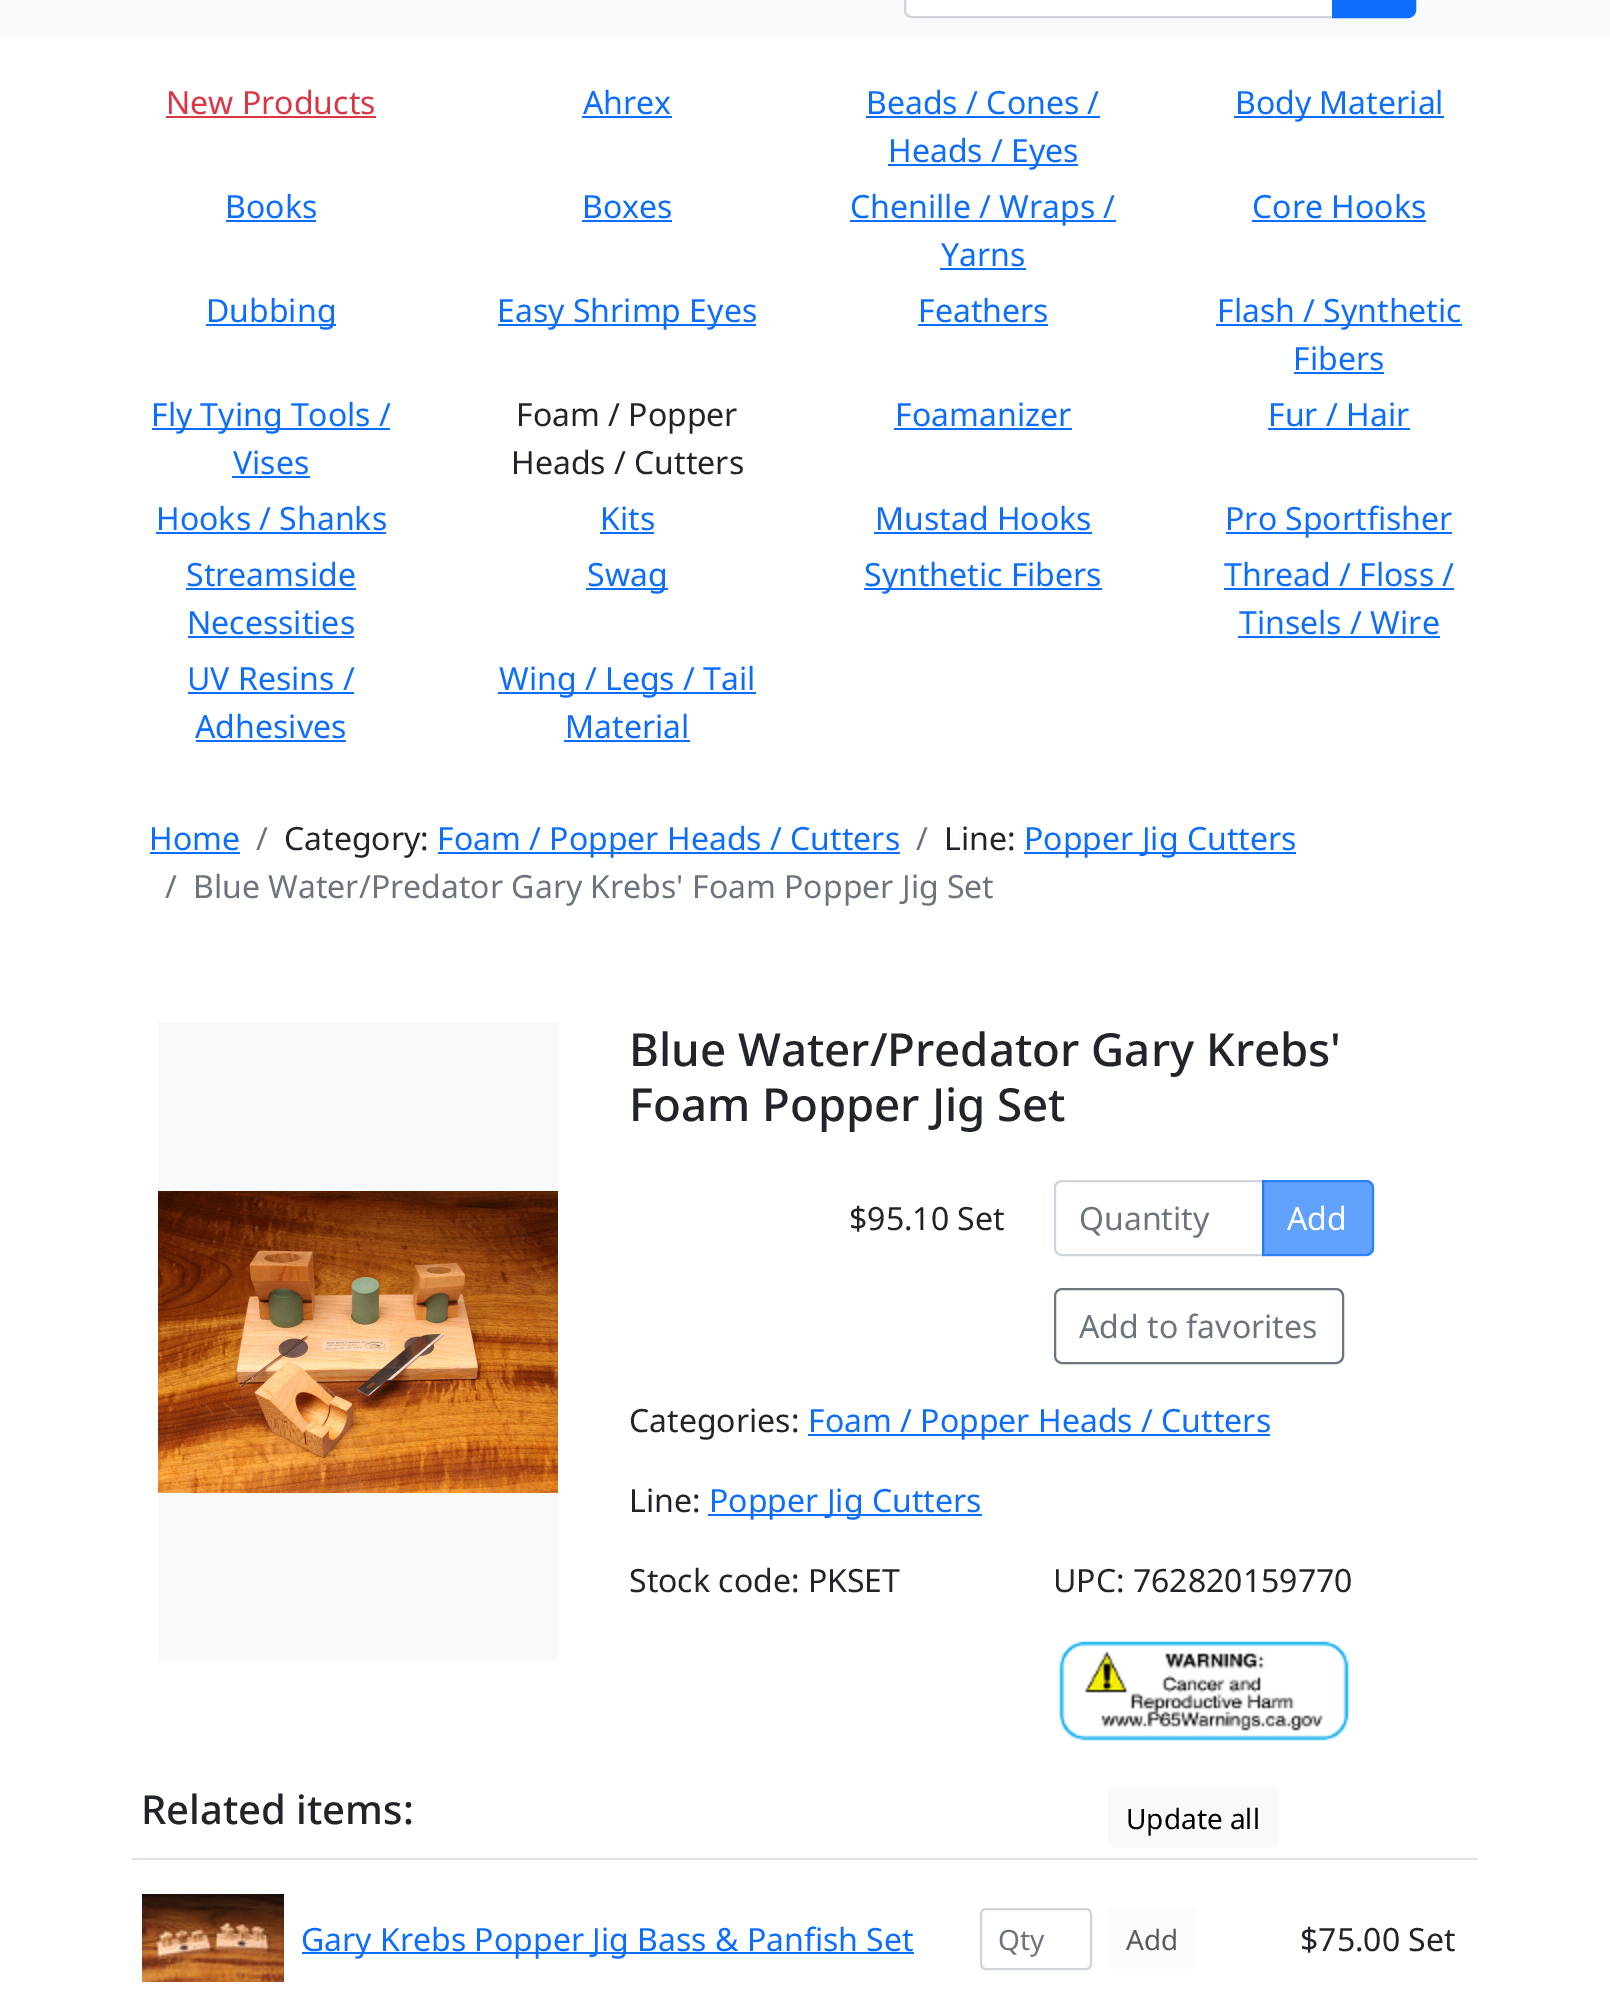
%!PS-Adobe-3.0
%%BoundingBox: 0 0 1610 1996
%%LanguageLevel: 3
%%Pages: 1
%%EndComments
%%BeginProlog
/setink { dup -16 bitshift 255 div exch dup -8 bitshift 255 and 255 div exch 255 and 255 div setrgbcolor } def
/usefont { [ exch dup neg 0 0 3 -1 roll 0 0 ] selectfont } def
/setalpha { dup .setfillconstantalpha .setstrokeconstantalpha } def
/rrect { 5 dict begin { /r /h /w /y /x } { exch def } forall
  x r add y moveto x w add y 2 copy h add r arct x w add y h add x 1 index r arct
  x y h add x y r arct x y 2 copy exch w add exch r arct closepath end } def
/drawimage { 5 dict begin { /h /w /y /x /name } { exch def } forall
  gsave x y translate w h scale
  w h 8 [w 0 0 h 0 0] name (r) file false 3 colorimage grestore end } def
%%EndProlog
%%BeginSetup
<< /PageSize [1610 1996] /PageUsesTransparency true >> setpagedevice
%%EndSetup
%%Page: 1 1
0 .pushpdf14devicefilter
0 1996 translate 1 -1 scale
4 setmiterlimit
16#FFFFFF setink
0 0 1610 1996 rectfill
16#F8F9FA setink
0 0 1610 38 rectfill
16#FFFFFF setink
912 -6 moveto 1332 -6 lineto 1332 16 lineto 912 16 lineto 908.5 16 906 13.5 906 10 curveto 906 0 lineto 906 -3.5 908.5 -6 912 -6 curveto closepath fill
16#CED4DA setink
2 setlinewidth
912 -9 moveto 1333 -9 lineto 1333 17 lineto 912 17 lineto 908 17 905 14 905 10 curveto 905 -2 lineto 905 -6 908 -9 912 -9 curveto closepath stroke
16#0D6EFD setink
1333 -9 moveto 1408 -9 lineto 1412 -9 1415 -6 1415 -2 curveto 1415 10 lineto 1415 14 1412 17 1408 17 curveto 1333 17 lineto closepath gsave fill grestore
stroke
/NotoSans-Regular 32 usefont
16#DC3545 setink
166 114 moveto (New Products) show
166 116 210 2 rectfill
16#0D6EFD setink
583 114 moveto (Ahrex) show
582 116 90 2 rectfill
866 114 moveto (Beads / Cones /) show
866 116 234 2 rectfill
888 164 190 2 rectfill
888 162 moveto (Heads / Eyes) show
1234 116 210 2 rectfill
1235 114 moveto (Body Material) show
225 218 moveto (Books) show
226 220 90 2 rectfill
582 218 moveto (Boxes) show
582 220 90 2 rectfill
850 220 266 2 rectfill
850 218 moveto (Chenille / Wraps /) show
941 266 moveto (Yarns) show
940 268 86 2 rectfill
1252 218 moveto (Core Hooks) show
1252 220 174 2 rectfill
206 324 130 2 rectfill
206 322 moveto (Dubbing) show
498 324 258 2 rectfill
497 322 moveto (Easy Shrimp Eyes) show
918 322 moveto (Feathers) show
918 324 130 2 rectfill
1216 324 246 2 rectfill
1217 322 moveto (Flash / Synthetic) show
1293 370 moveto (Fibers) show
1294 372 90 2 rectfill
152 428 238 2 rectfill
151 426 moveto (Fly Tying Tools /) show
233 474 moveto (Vises) show
232 476 78 2 rectfill
16#212529 setink
516 426 moveto (Foam / Popper) show
511 474 moveto (Heads / Cutters) show
16#0D6EFD setink
895 426 moveto (Foamanizer) show
894 428 178 2 rectfill
1268 426 moveto (Fur / Hair) show
1268 428 142 2 rectfill
156 530 moveto (Hooks / Shanks) show
156 532 230 2 rectfill
600 530 moveto (Kits) show
600 532 54 2 rectfill
875 530 moveto (Mustad Hooks) show
874 532 218 2 rectfill
1226 532 226 2 rectfill
1225 530 moveto (Pro Sportfisher) show
186 586 moveto (Streamside) show
186 588 170 2 rectfill
187 634 moveto (Necessities) show
188 636 166 2 rectfill
586 588 82 2 rectfill
587 586 moveto (Swag) show
864 588 238 2 rectfill
864 586 moveto (Synthetic Fibers) show
1224 586 moveto (Thread / Floss /) show
1224 588 230 2 rectfill
1239 634 moveto (Tinsels / Wire) show
1238 636 202 2 rectfill
187 690 moveto (UV Resins /) show
188 692 166 2 rectfill
195 738 moveto (Adhesives) show
196 740 150 2 rectfill
498 692 258 2 rectfill
499 690 moveto (Wing / Legs / Tail) show
565 738 moveto (Material) show
564 740 126 2 rectfill
149 850 moveto (Home) show
150 852 90 2 rectfill
16#6C757D setink
256 850 moveto (/) show
16#212529 setink
284 850 moveto (Category:) show
16#0D6EFD setink
438 852 462 2 rectfill
437 850 moveto (Foam / Popper Heads / Cutters) show
16#6C757D setink
916 850 moveto (/) show
16#212529 setink
944 850 moveto (Line:) show
16#0D6EFD setink
1024 852 272 2 rectfill
1024 850 moveto (Popper Jig Cutters) show
16#6C757D setink
165 898 moveto (/) show
193 898 moveto (Blue Water/Predator Gary Krebs' Foam Popper Jig Set) show
16#F8F9FA setink
158 1022 400 640 rectfill
(img1.raw) 158 1191 400 302 drawimage
/NotoSans-Medium 45.6 usefont
16#212529 setink
629 1066 moveto (Blue Water/Predator Gary Krebs') show
629 1121 moveto (Foam Popper Jig Set) show
/NotoSans-Regular 32 usefont
849 1230 moveto ($95.10 Set) show
16#CED4DA setink
1062 1181 moveto 1263 1181 lineto 1263 1255 lineto 1062 1255 lineto 1058 1255 1055 1252 1055 1248 curveto 1055 1188 lineto 1055 1184 1058 1181 1062 1181 curveto closepath stroke
16#6C757D setink
1079 1230 moveto (Quantity) show
0.65 setalpha
16#0D6EFD setink
1262 1180 moveto 1366 1180 lineto 1370.5 1180 1374 1183.5 1374 1188 curveto 1374 1248 lineto 1374 1252.5 1370.5 1256 1366 1256 curveto 1262 1256 lineto closepath fill
1263 1181 moveto 1366 1181 lineto 1370 1181 1373 1184 1373 1188 curveto 1373 1248 lineto 1373 1252 1370 1255 1366 1255 curveto 1263 1255 lineto closepath stroke
1 setalpha
16#FFFFFF setink
1287 1230 moveto (Add) show
16#6C757D setink
1055 1289 288 74 7 rrect stroke
1079 1338 moveto (Add to favorites) show
16#212529 setink
629 1432 moveto (Categories:) show
16#0D6EFD setink
808 1434 462 2 rectfill
808 1432 moveto (Foam / Popper Heads / Cutters) show
16#212529 setink
629 1512 moveto (Line:) show
16#0D6EFD setink
708 1514 274 2 rectfill
709 1512 moveto (Popper Jig Cutters) show
16#212529 setink
629 1592 moveto (Stock code: PKSET) show
1053 1592 moveto (UPC: 762820159770) show
(img2.raw) 1059 1641 290 100 drawimage
/NotoSans-Medium 40 usefont
141 1824 moveto (Related items:) show
16#F8F9FA setink
1108 1786 170 62 6 rrect fill
/NotoSans-Regular 28 usefont
16#000000 setink
1126 1829 moveto (Update all) show
16#DEE2E6 setink
132 1858 1346 2 rectfill
(img3.raw) 142 1894 142 88 drawimage
16#0D6EFD setink
302 1952 612 2 rectfill
/NotoSans-Regular 32 usefont
301 1951 moveto (Gary Krebs Popper Jig Bass & Panfish Set) show
16#CED4DA setink
981 1909 110 60 5 rrect stroke
/NotoSans-Regular 28 usefont
16#6C757D setink
998 1950 moveto (Qty) show
16#FAFBFC setink
1108 1908 88 62 6 rrect fill
16#595959 setink
1126 1950 moveto (Add) show
/NotoSans-Regular 32 usefont
16#212529 setink
1300 1951 moveto ($75.00 Set) show
.poppdf14devicefilter showpage
%%EOF
